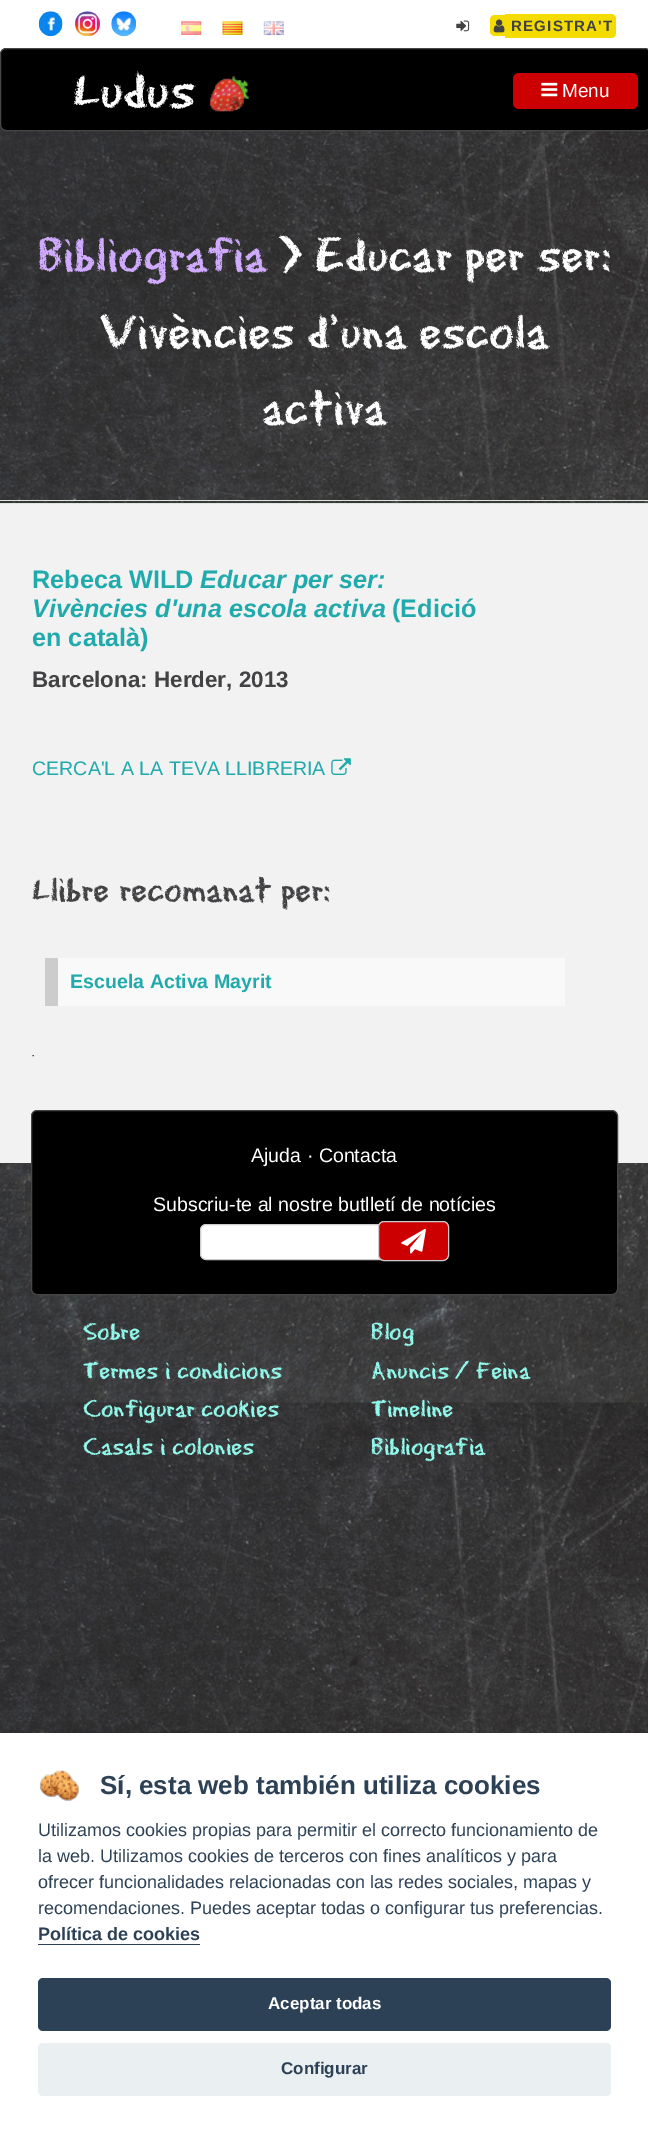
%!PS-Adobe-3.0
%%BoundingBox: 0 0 648 2133
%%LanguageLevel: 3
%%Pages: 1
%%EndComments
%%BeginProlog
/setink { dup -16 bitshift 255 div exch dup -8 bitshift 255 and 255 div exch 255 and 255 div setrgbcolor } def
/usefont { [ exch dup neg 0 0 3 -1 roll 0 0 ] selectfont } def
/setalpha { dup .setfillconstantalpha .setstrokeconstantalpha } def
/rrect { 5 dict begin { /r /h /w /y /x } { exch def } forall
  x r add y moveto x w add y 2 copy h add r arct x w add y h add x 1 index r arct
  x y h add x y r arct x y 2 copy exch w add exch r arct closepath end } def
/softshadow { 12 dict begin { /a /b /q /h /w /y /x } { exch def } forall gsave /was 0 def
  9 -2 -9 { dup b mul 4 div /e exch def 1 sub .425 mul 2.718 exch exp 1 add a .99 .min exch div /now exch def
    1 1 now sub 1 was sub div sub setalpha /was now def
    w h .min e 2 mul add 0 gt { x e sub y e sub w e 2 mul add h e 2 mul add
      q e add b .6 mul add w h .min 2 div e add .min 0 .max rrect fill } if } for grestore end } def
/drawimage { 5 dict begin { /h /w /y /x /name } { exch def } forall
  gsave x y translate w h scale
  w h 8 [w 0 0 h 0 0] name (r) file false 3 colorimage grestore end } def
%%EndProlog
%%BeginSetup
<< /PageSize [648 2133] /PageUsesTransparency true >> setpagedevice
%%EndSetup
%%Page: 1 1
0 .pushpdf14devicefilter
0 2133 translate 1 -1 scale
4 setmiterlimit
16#FFFFFF setink
0 0 648 2133 rectfill
(img1.raw) 0 125 648 1608 drawimage
(img2.raw) 38 11 25 26 drawimage
(img3.raw) 75 11 25 26 drawimage
(img4.raw) 111 11 26 26 drawimage
(img5.raw) 181 21 21 14 drawimage
(img6.raw) 222 21 21 14 drawimage
(img7.raw) 263 21 21 14 drawimage
(img8.raw) 456 20 14 12 drawimage
16#F4DC00 setink
495 15 moveto 505 15 lineto 505 36 lineto 495 36 lineto 492 36 490 34 490 31 curveto 490 20 lineto 490 17 492 15 495 15 curveto closepath fill
505 14 moveto 611 14 lineto 614 14 616 16 616 19 curveto 616 33 lineto 616 36 614 38 611 38 curveto 505 38 lineto closepath fill
(img9.raw) 493 19 12 14 drawimage
/LiberationSans-Bold 15 usefont
16#424244 setink
511 31 moveto 1.25 0 (REGISTRA'T) ashow
16#000000 setink
0.5 48.5 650 82 5.5 rrect gsave fill grestore
16#464646 setink
stroke
/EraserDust-Regular 55 usefont
16#FFFFFF setink
73 109 moveto (Ludus) show
(img10.raw) 209 76 40 36 drawimage
16#CC0000 setink
513 73 125 36 6 rrect fill
(img11.raw) 541 82 17 15 drawimage
/LiberationSans-Regular 19 usefont
16#FFFFFF setink
562 97 moveto (Menu) show
16#DDE6DE setink
0 500 648 1 rectfill
0 503 648 1 rectfill
/EraserDust-Regular 51 usefont
16#CFAAFF setink
38 272 moveto (Bibliografia) show
16#FFFFFF setink
[
    [(> Educar per ser:) 279 272]
    [(Vivències d'una escola) 100 349]
    [(activa) 262 425]
] { aload pop moveto show } forall
16#F2F2F2 setink
0 504 648 659 rectfill
/LiberationSans-Bold 25.25 usefont
16#21AAAC setink
32 588 moveto (Rebeca WILD) show
/LiberationSans-BoldItalic 25.25 usefont
200 588 moveto (Educar per ser:) show
32 617 moveto (Vivències d'una escola activa) show
/LiberationSans-Bold 25.25 usefont
392 617 moveto (\(Edició) show
32 646 moveto (en català\)) show
/LiberationSans-Bold 22.4 usefont
16#424244 setink
32 687 moveto (Barcelona: Herder, 2013) show
/LiberationSans-Regular 19.6 usefont
16#21AAAC setink
32 775 moveto (CERCA'L A LA TEVA LLIBRERIA) show
(img12.raw) 331 758 20 17 drawimage
/EraserDust-Regular 36.5 usefont
16#424244 setink
32 902 moveto (Llibre recomanat per:) show
16#F9F9F9 setink
58 958 507 48 rectfill
16#CCCCCC setink
45 958 13 48 rectfill
/LiberationSans-Bold 19.6 usefont
16#21AAAC setink
70 988 moveto (Escuela Activa Mayrit) show
(img13.raw) 32 1055 2 2 drawimage
16#000000 setink
31.5 1110.5 586 184 5.5 rrect gsave fill grestore
16#464646 setink
stroke
/LiberationSans-Regular 19.6 usefont
16#FFFFFF setink
251 1162 moveto (Ajuda · Contacta) show
153 1211 moveto (Subscriu-te al nostre butlletí de notícies) show
200.5 1224.5 237 35 5.5 rrect gsave fill grestore
16#CCCCCC setink
stroke
16#CC0000 setink
378.5 1221.5 70 39 5.5 rrect gsave fill grestore
16#CCCCCC setink
stroke
(img14.raw) 401 1228 25 26 drawimage
/EraserDust-Regular 25.5 usefont
16#92FAEC setink
[
    [(Sobre) 83 1340]
    [(Termes i condicions) 83 1379]
    [(Configurar cookies) 83 1417]
    [(Casals i colonies) 83 1455]
    [(Blog) 371 1340]
    [(Anuncis / Feina) 371 1379]
    [(Timeline) 371 1417]
    [(Bibliografia) 371 1455]
] { aload pop moveto show } forall
16#020203 setink
0 1745 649 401 0 19 0.28 softshadow
16#FFFFFF setink
0 1733 648 400 rectfill
(img15.raw) 39 1770 40 31 drawimage
/LiberationSans-Bold 26 usefont
16#2D4156 setink
100 1794 moveto (Sí, esta web también utiliza cookies) show
/LiberationSans-Regular 18 usefont
[
    [(Utilizamos cookies propias para permitir el correcto funcionamiento de) 38 1836]
    [(la web. Utilizamos cookies de terceros con fines analíticos y para) 38 1862]
    [(ofrecer funcionalidades relacionadas con las redes sociales, mapas y) 38 1888]
    [(recomendaciones. Puedes aceptar todas o configurar tus preferencias.) 38 1914]
] { aload pop moveto show } forall
/LiberationSans-Bold 18 usefont
38 1940 moveto (Política de cookies) show
38 1944 162 1 rectfill
38 1978 573 53 5 rrect fill
/LiberationSans-Bold 17 usefont
16#FFFFFF setink
268 2009 moveto (Aceptar todas) show
16#EAEFF2 setink
38 2043 573 53 5 rrect fill
16#2D4156 setink
281 2074 moveto (Configurar) show
.poppdf14devicefilter showpage
%%EOF
